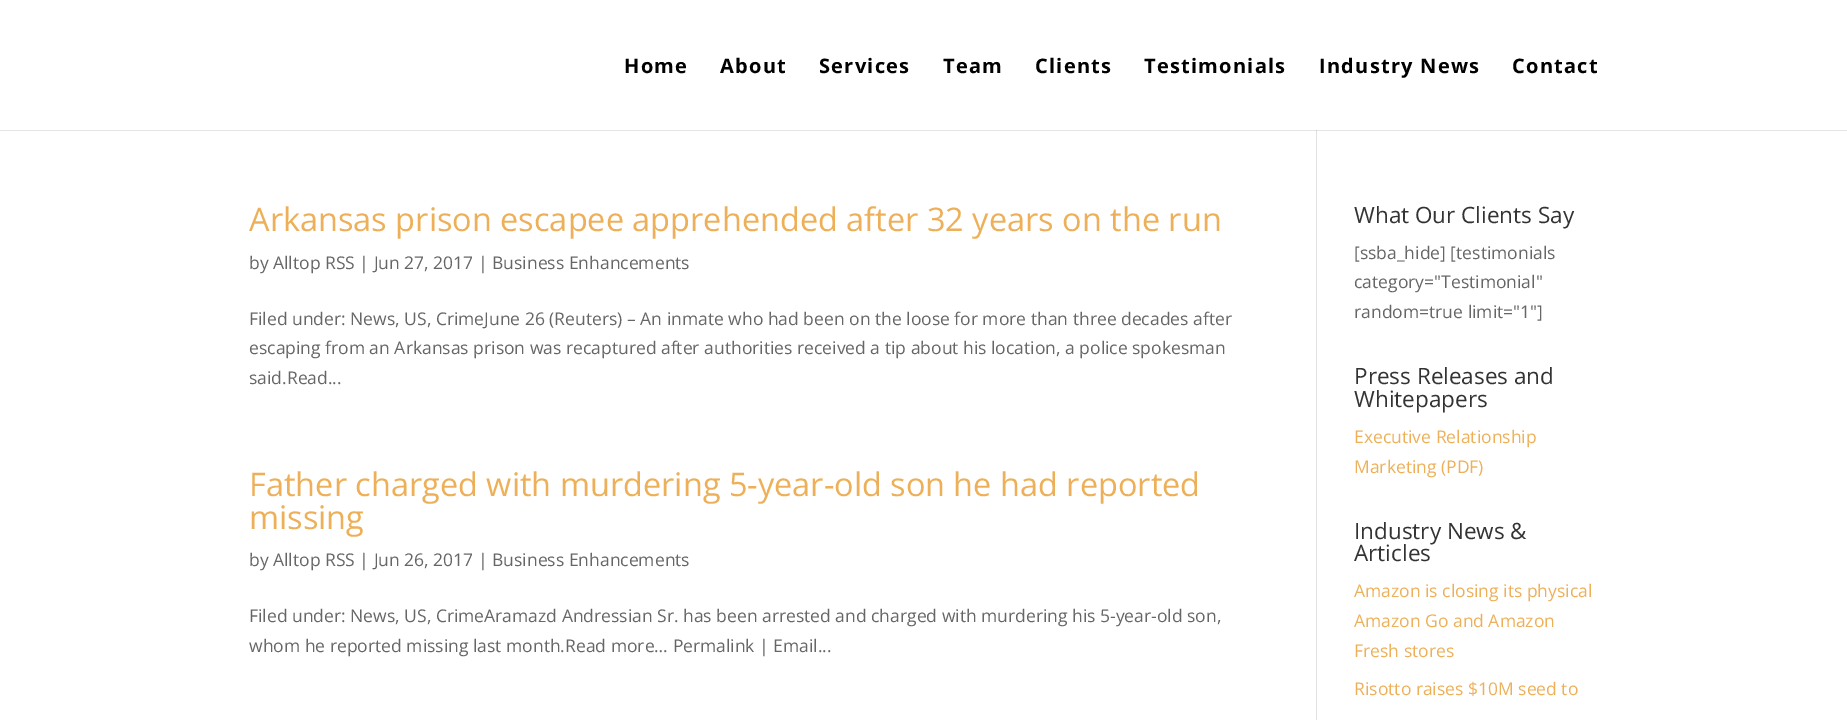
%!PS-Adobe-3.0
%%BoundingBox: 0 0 1847 720
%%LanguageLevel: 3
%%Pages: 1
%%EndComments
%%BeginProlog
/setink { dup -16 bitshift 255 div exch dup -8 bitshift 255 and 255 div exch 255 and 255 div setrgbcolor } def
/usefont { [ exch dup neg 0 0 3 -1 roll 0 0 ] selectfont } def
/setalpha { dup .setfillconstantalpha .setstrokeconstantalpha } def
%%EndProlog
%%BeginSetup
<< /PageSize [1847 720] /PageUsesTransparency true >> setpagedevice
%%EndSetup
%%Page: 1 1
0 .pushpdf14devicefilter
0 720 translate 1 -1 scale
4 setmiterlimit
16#FFFFFF setink
0 0 1847 720 rectfill
16#E2E2E2 setink
1316 130 1 590 rectfill
0.1 setalpha
16#000000 setink
0 130 moveto 0 131 lineto 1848 131 lineto 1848 1 lineto 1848 130 lineto closepath fill
/OpenSans-Bold 20 usefont
1 setalpha
624 73 moveto 1.25 0 (Home) ashow
720 73 moveto 1.25 0 (About) ashow
819 73 moveto 1.25 0 (Services) ashow
943 73 moveto 1.25 0 (Team) ashow
1035 73 moveto 1.25 0 (Clients) ashow
1144 73 moveto 1.25 0 (Testimonials) ashow
1319 73 moveto 1.25 0 (Industry News) ashow
1512 73 moveto 1.25 0 (Contact) ashow
/OpenSans-Regular 32.5 usefont
16#EDB059 setink
249 231 moveto (Arkansas prison escapee apprehended after 32 years on the run) show
/OpenSans-Regular 17.5 usefont
16#666666 setink
[
    [(by Alltop RSS | Jun 27, 2017 | Business Enhancements) 249 269]
    [(Filed under: News, US, CrimeJune 26 \(Reuters\) – An inmate who had been on the loose for more than three decades after) 249 325]
    [(escaping from an Arkansas prison was recaptured after authorities received a tip about his location, a police spokesman) 249 354]
    [(said.Read...) 249 384]
] { aload pop moveto show } forall
/OpenSans-Regular 32.5 usefont
16#EDB059 setink
249 496 moveto (Father charged with murdering 5-year-old son he had reported) show
249 529 moveto (missing) show
/OpenSans-Regular 17.5 usefont
16#666666 setink
[
    [(by Alltop RSS | Jun 26, 2017 | Business Enhancements) 249 566]
    [(Filed under: News, US, CrimeAramazd Andressian Sr. has been arrested and charged with murdering his 5-year-old son,) 249 622]
    [(whom he reported missing last month.Read more… Permalink | Email...) 249 652]
] { aload pop moveto show } forall
/OpenSans-Regular 22.5 usefont
16#333333 setink
1354 223 moveto (What Our Clients Say) show
/OpenSans-Regular 17.5 usefont
16#666666 setink
[
    [([ssba_hide] [testimonials) 1354 259]
    [(category="Testimonial") 1354 288]
    [(random=true limit="1"]) 1354 318]
] { aload pop moveto show } forall
/OpenSans-Regular 22.5 usefont
16#333333 setink
1354 384 moveto (Press Releases and) show
1354 407 moveto (Whitepapers) show
/OpenSans-Regular 17.5 usefont
16#EDB059 setink
1354 443 moveto (Executive Relationship) show
1354 473 moveto (Marketing \(PDF\)) show
/OpenSans-Regular 22.5 usefont
16#333333 setink
1354 539 moveto (Industry News &) show
1354 561 moveto (Articles) show
/OpenSans-Regular 17.5 usefont
16#EDB059 setink
[
    [(Amazon is closing its physical) 1354 597]
    [(Amazon Go and Amazon) 1354 627]
    [(Fresh stores) 1354 657]
    [(Risotto raises $10M seed to) 1354 695]
] { aload pop moveto show } forall
.poppdf14devicefilter showpage
%%EOF
